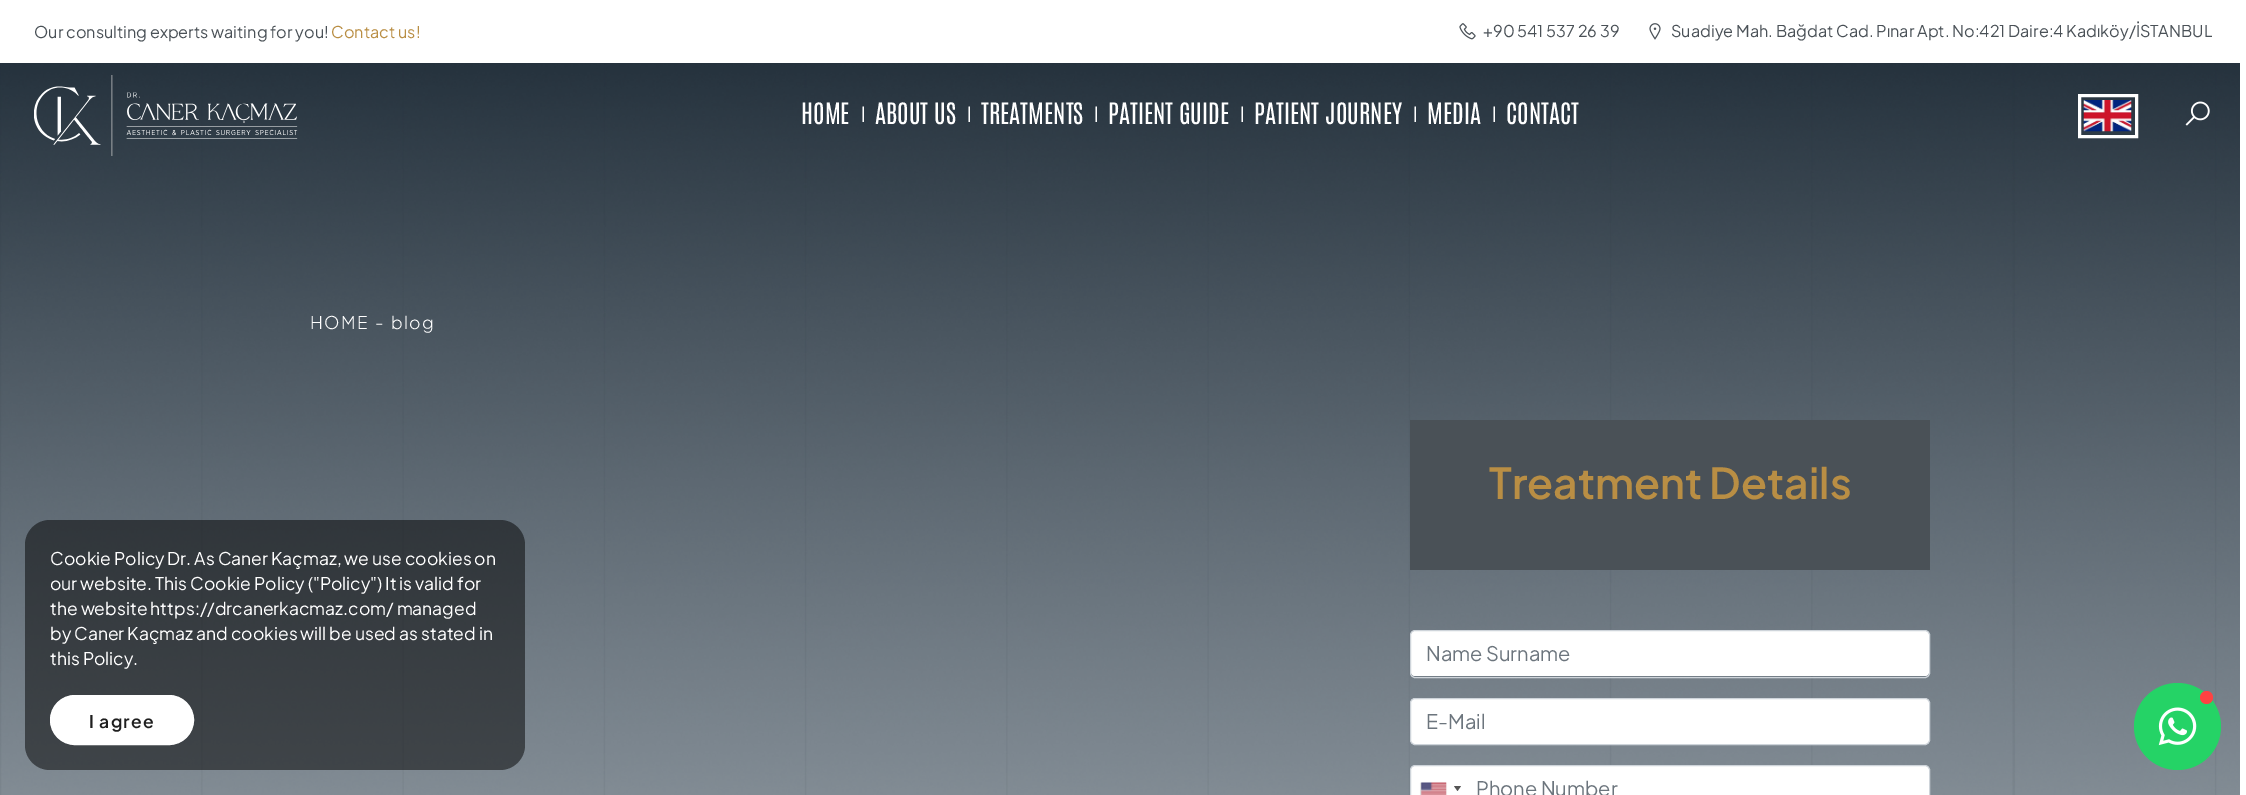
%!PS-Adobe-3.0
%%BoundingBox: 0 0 2246 795
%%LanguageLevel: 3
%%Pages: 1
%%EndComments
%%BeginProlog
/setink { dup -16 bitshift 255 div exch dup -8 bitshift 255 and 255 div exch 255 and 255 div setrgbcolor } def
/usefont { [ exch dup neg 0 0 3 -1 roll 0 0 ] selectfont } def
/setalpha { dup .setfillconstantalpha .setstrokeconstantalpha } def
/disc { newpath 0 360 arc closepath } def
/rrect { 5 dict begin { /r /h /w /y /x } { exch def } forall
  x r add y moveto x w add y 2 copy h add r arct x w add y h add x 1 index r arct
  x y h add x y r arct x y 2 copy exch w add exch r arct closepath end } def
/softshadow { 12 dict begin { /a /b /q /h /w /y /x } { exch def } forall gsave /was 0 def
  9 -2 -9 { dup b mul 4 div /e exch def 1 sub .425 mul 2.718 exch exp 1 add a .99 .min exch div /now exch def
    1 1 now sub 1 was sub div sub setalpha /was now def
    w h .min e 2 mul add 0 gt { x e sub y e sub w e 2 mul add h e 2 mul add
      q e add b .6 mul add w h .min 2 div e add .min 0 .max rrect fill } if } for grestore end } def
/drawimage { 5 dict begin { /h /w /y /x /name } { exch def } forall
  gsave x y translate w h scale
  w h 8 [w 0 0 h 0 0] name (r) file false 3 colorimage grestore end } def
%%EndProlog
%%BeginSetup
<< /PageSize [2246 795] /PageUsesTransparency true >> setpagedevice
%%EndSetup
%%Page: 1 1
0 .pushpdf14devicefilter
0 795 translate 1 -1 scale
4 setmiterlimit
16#FFFFFF setink
0 0 2246 795 rectfill
(img1.raw) 0 63 2217 732 drawimage
/PlusJakartaSans-Regular 16.25 usefont
16#4A5157 setink
34 38 moveto (Our consulting experts waiting for you!) show
16#B98E44 setink
331 38 moveto (Contact us!) show
(img2.raw) 1459 23 17 17 drawimage
16#4A5157 setink
1483 37 moveto (+90 541 537 26 39) show
(img3.raw) 1649 23 12 17 drawimage
1671 37 moveto (Suadiye Mah. Bağdat Cad. Pınar Apt. No:421 Daire:4 Kadıköy/İSTANBUL) show
(img7.raw) 0 63 2240 732 drawimage
(img4.raw) 34 75 264 81 drawimage
/Antonio-Regular 25 usefont
16#FFFFFF setink
801 124 moveto (HOME) show
/Antonio-Regular 16.25 usefont
861 121 moveto (|) show
/Antonio-Regular 25 usefont
875 124 moveto (ABOUT US) show
/Antonio-Regular 16.25 usefont
967 121 moveto (|) show
/Antonio-Regular 25 usefont
981 124 moveto (TREATMENTS) show
/Antonio-Regular 16.25 usefont
1094 121 moveto (|) show
/Antonio-Regular 25 usefont
1108 124 moveto (PATIENT GUIDE) show
/Antonio-Regular 16.25 usefont
1240 121 moveto (|) show
/Antonio-Regular 25 usefont
1254 124 moveto (PATIENT JOURNEY) show
/Antonio-Regular 16.25 usefont
1413 121 moveto (|) show
/Antonio-Regular 25 usefont
1427 124 moveto (MEDIA) show
/Antonio-Regular 16.25 usefont
1492 121 moveto (|) show
/Antonio-Regular 25 usefont
1506 124 moveto (CONTACT) show
3 setlinewidth
2079.5 95.5 57 41 rectstroke
(img5.raw) 2083 100 49 32 drawimage
(img6.raw) 2185 101 25 25 drawimage
/PlusJakartaSans-Light 17.5 usefont
310 329 moveto 1.25 0 (HOME) ashow
375 329 moveto 1.25 0 (-) ashow
391 329 moveto 1.25 0 (blog) ashow
16#4A5157 setink
1410 420 520 150 rectfill
/PlusJakartaSans-SemiBold 42.5 usefont
16#B98E44 setink
1489 499 moveto (Treatment Details) show
16#FFFFFF setink
1411 631 518 45 4 rrect fill
16#CED4DA setink
1 setlinewidth
1410.5 630.5 519 47 4.5 rrect stroke
/PlusJakartaSans-Regular 20 usefont
16#6C757D setink
1426 661 moveto (Name Surname) show
16#FFFFFF setink
1410.5 698.5 519 46 4.5 rrect gsave fill grestore
16#CED4DA setink
stroke
16#6C757D setink
1426 729 moveto (E-Mail) show
16#FFFFFF setink
1411 766 518 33 4 rrect fill
16#CED4DA setink
1410.5 765.5 519 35 4.5 rrect stroke
16#888888 setink
1421 783 25 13 0 0.5 1 softshadow
(img8.raw) 1421 782 26 13 drawimage
16#555555 setink
1454 786 moveto 1461 786 lineto 1457.5 791 lineto closepath fill
16#6C757D setink
1476 796 moveto (Phone Number) show
0.5 setalpha
16#000000 setink
25 520 500 250 25 rrect fill
/PlusJakartaSans-Regular 17.5 usefont
1 setalpha
16#FFFFFF setink
[
    [(Cookie Policy Dr. As Caner Kaçmaz, we use cookies on) 50 565]
    [(our website. This Cookie Policy \("Policy"\) It is valid for) 50 590]
    [(the website https://drcanerkacmaz.com/ managed) 50 615]
    [(by Caner Kaçmaz and cookies will be used as stated in) 50 640]
    [(this Policy.) 50 665]
] { aload pop moveto show } forall
50.5 695.5 143 49 24.5 rrect gsave fill grestore
stroke
/PlusJakartaSans-SemiBold 17.5 usefont
16#1F1F1F setink
89 728 moveto 1.25 0 (I agree) ashow
16#25D366 setink
2177.5 726.5 43.5 disc fill
16#FF4242 setink
2206.5 697.5 6.5 disc fill
(img9.raw) 2158 707 39 39 drawimage
.poppdf14devicefilter showpage
%%EOF
